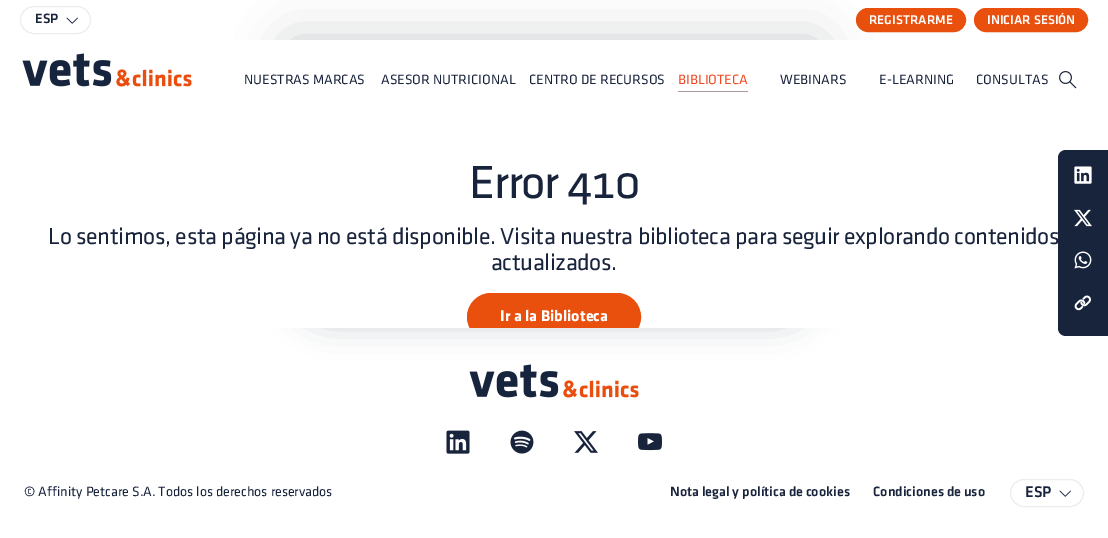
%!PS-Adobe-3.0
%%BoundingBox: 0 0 1108 538
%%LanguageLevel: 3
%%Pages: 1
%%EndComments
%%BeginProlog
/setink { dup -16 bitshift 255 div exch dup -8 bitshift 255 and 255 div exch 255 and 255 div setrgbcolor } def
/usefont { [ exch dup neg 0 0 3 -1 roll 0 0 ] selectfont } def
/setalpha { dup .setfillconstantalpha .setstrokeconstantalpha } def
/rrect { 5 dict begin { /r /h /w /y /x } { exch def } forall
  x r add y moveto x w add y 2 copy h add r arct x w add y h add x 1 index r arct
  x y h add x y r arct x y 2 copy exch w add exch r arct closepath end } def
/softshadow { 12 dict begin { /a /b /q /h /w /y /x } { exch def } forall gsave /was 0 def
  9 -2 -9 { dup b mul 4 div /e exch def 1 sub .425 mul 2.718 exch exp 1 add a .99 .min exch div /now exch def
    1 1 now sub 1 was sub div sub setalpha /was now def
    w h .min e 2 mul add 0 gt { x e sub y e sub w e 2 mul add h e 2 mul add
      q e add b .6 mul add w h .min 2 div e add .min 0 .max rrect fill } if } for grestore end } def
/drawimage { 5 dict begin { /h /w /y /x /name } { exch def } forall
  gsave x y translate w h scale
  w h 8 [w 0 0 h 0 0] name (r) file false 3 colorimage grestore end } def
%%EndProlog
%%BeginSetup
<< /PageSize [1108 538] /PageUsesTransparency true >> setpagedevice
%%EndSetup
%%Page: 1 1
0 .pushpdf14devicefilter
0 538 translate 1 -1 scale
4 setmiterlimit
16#FFFFFF setink
0 0 1108 538 rectfill
16#EEEBEB setink
20.5 6.5 70 27 13.5 rrect stroke
/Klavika-Medium 14 usefont
16#18233C setink
35 23 moveto (ESP) show
(img1.raw) 66 17 12 7 drawimage
16#E94F0D setink
856.5 8.5 109 23 11.5 rrect gsave fill grestore
stroke
gsave
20 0 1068 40 rectclip
16#17243D setink
287 40 534 40 20 25 0.24 softshadow
grestore
/Klavika-Medium 13 usefont
16#FFFFFF setink
869 24 moveto (REGISTRARME) show
16#E94F0D setink
974.5 8.5 113 23 11.5 rrect gsave fill grestore
stroke
16#FFFFFF setink
987 24 moveto (INICIAR SESIÓN) show
(img2.raw) 22 53 170 34 drawimage
/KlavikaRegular-Regular 14 usefont
16#18233C setink
[
    [(NUESTRAS MARCAS) 244 84]
    [(ASESOR NUTRICIONAL) 381 84]
    [(CENTRO DE RECURSOS) 529 84]
] { aload pop moveto show } forall
16#F24822 setink
678 84 moveto (BIBLIOTECA) show
16#A89999 setink
678 91 70 1 rectfill
16#18233C setink
[
    [(WEBINARS) 780 84]
    [(E-LEARNING) 879 84]
    [(CONSULTAS) 976 84]
] { aload pop moveto show } forall
(img3.raw) 1059 71 18 18 drawimage
/KlavikaRegular-Regular 48 usefont
469 198 moveto -1.1 0 (Error 410) ashow
/KlavikaRegular-Regular 24 usefont
48 244 moveto -0.4 0 (Lo sentimos, esta página ya no está disponible. Visita nuestra biblioteca para seguir explorando contenidos) ashow
491 270 moveto -0.4 0 (actualizados.) ashow
gsave
0 0 1108 328 rectclip
16#E94F0D setink
467.5 293.5 173 47 23.5 rrect gsave fill grestore
stroke
grestore
/Klavika-Bold 16 usefont
16#FFFFFF setink
500 321 moveto (Ir a la Biblioteca) show
16#18233C setink
1066 150 moveto 1108 150 lineto 1108 336 lineto 1066 336 lineto 1061.5 336 1058 332.5 1058 328 curveto 1058 158 lineto 1058 153.5 1061.5 150 1066 150 curveto closepath fill
(img4.raw) 1074 166 18 18 drawimage
(img5.raw) 1074 209 18 18 drawimage
(img6.raw) 1074 251 18 18 drawimage
(img7.raw) 1074 295 17 16 drawimage
(img2.raw) 469 364 170 34 drawimage
gsave
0 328 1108 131 rectclip
16#17243D setink
277 197 554 131 65.5 15 0.18 softshadow
grestore
(img8.raw) 446 430 24 24 drawimage
(img9.raw) 510 430 24 24 drawimage
(img10.raw) 574 431 24 22 drawimage
(img11.raw) 638 433 24 18 drawimage
/KlavikaRegular-Regular 14 usefont
24 496 moveto (© Affinity Petcare S.A. Todos los derechos reservados) show
/Klavika-Medium 14 usefont
670 496 moveto (Nota legal y política de cookies) show
873 496 moveto (Condiciones de uso) show
16#EEEBEB setink
1010.5 479.5 73 27 13.5 rrect stroke
/Klavika-Medium 16 usefont
16#18233C setink
1025 497 moveto (ESP) show
(img1.raw) 1059 490 12 7 drawimage
.poppdf14devicefilter showpage
%%EOF
